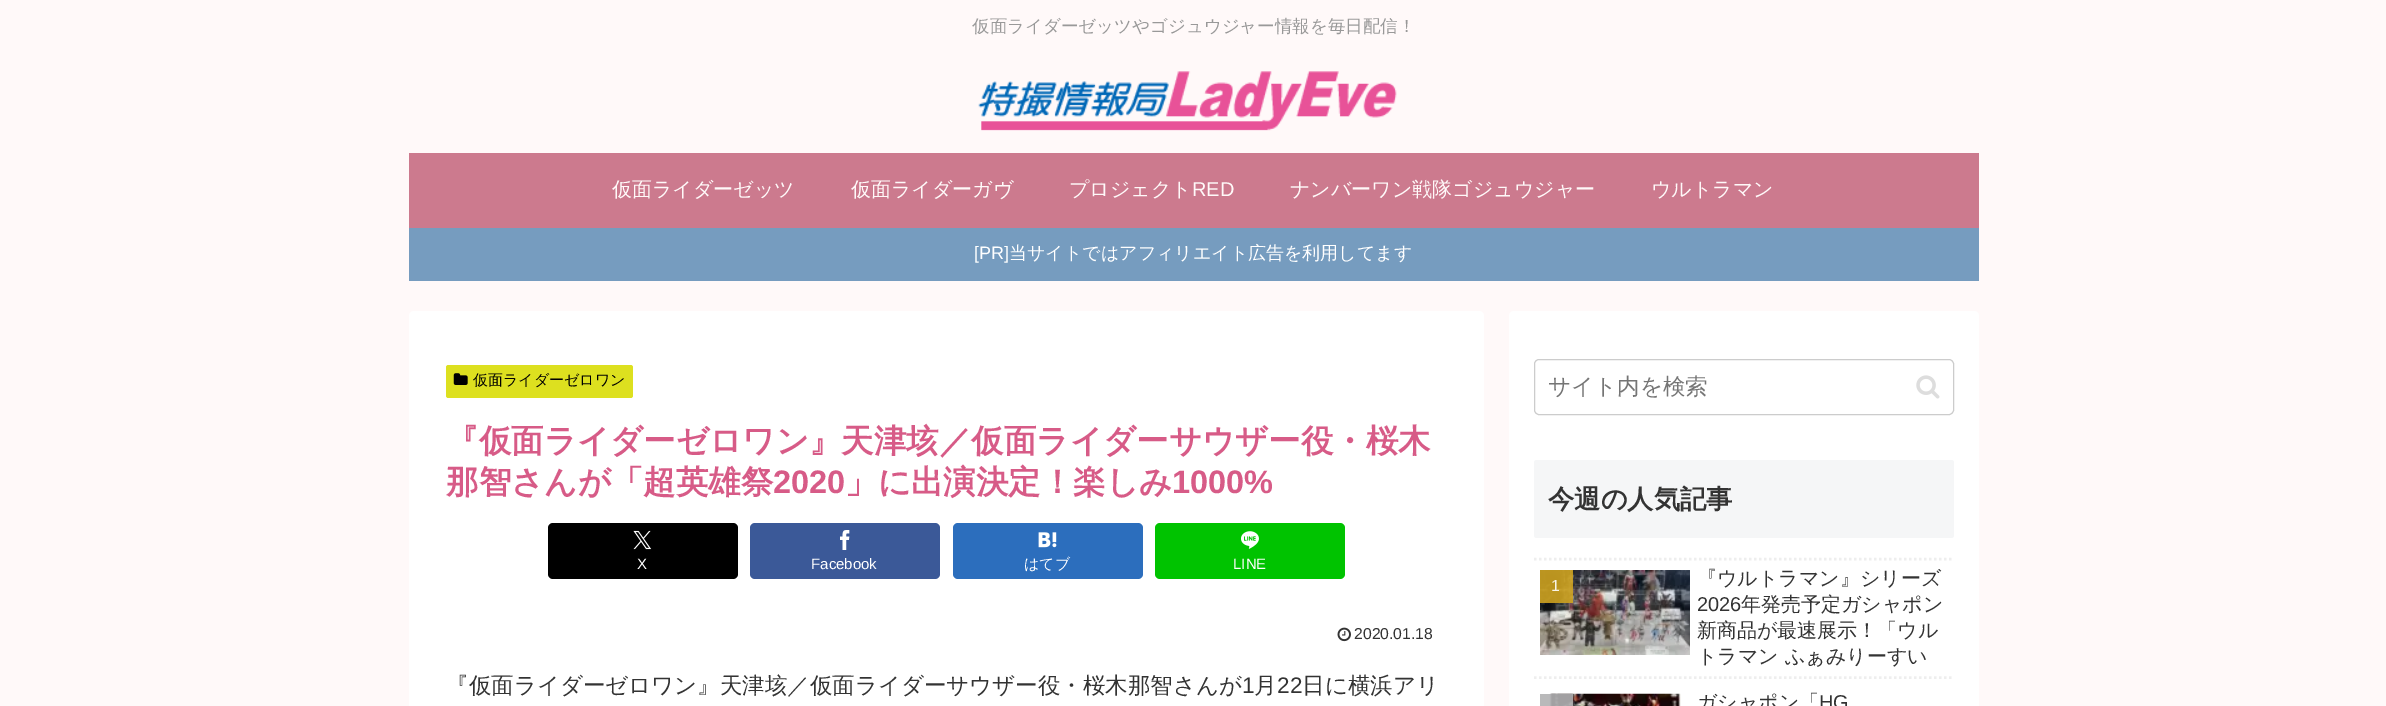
%!PS-Adobe-3.0
%%BoundingBox: 0 0 2386 706
%%LanguageLevel: 3
%%Pages: 1
%%EndComments
%%BeginProlog
/setink { dup -16 bitshift 255 div exch dup -8 bitshift 255 and 255 div exch 255 and 255 div setrgbcolor } def
/usefont { [ exch dup neg 0 0 3 -1 roll 0 0 ] selectfont } def
/setalpha { dup .setfillconstantalpha .setstrokeconstantalpha } def
/rrect { 5 dict begin { /r /h /w /y /x } { exch def } forall
  x r add y moveto x w add y 2 copy h add r arct x w add y h add x 1 index r arct
  x y h add x y r arct x y 2 copy exch w add exch r arct closepath end } def
/drawimage { 5 dict begin { /h /w /y /x /name } { exch def } forall
  gsave x y translate w h scale
  w h 8 [w 0 0 h 0 0] name (r) file false 3 colorimage grestore end } def
%%EndProlog
%%BeginSetup
<< /PageSize [2386 706] /PageUsesTransparency true >> setpagedevice
%%EndSetup
%%Page: 1 1
0 .pushpdf14devicefilter
0 706 translate 1 -1 scale
4 setmiterlimit
16#FFF9F9 setink
0 0 2386 706 rectfill
/WenQuanYiZenHei-Medium 17.5 usefont
16#999999 setink
972 32 moveto (仮面ライダーゼッツやゴジュウジャー情報を毎日配信！) show
(img1.raw) 978 71 419 60 drawimage
16#CC7A8E setink
409 153 1570 75 rectfill
/WenQuanYiZenHei-Medium 20 usefont
16#FFF9F9 setink
[
    [(仮面ライダーゼッツ) 612 196]
    [(仮面ライダーガヴ) 851 196]
    [(プロジェクト) 1069 196]
] { aload pop moveto show } forall
/LiberationSans-Regular 20 usefont
1192 196 moveto (RED) show
/WenQuanYiZenHei-Medium 20 usefont
1290 196 moveto (ナンバーワン戦隊ゴジュウジャー) show
1651 196 moveto (ウルトラマン) show
16#769CBF setink
409 228 1570 53 rectfill
/LiberationSans-Regular 18 usefont
16#FFFFFF setink
974 259 moveto ([PR]) show
/WenQuanYiZenHei-Medium 18 usefont
1009 259 moveto (当サイトではアフィリエイト広告を利用してます) show
409 311 1075 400 5 rrect fill
16#DDE01F setink
446 365 187 33 2.5 rrect fill
(img2.raw) 453 373 15 12 drawimage
/WenQuanYiZenHei-Medium 15 usefont
16#000000 setink
473 385 moveto (仮面ライダーゼロワン) show
/WenQuanYiZenHei-Bold 32.5 usefont
16#D75B87 setink
446 452 moveto (『仮面ライダーゼロワン』天津垓／仮面ライダーサウザー役・桜木) show
446 493 moveto (那智さんが「超英雄祭) show
/LiberationSans-Bold 32.5 usefont
773 493 moveto (2020) show
/WenQuanYiZenHei-Bold 32.5 usefont
845 493 moveto (」に出演決定！楽しみ) show
/LiberationSans-Bold 32.5 usefont
1172 493 moveto (1000%) show
16#000000 setink
548 523 190 56 5 rrect fill
(img3.raw) 633 530 19 20 drawimage
/LiberationSans-Regular 15 usefont
16#FFFFFF setink
637 569 moveto (X) show
16#3B5998 setink
750 523 190 56 5 rrect fill
(img4.raw) 840 530 10 20 drawimage
16#FFFFFF setink
811 569 moveto (Facebook) show
16#2C6EBD setink
953 523 190 56 5 rrect fill
(img5.raw) 1038 532 19 16 drawimage
/WenQuanYiZenHei-Medium 15 usefont
16#FFFFFF setink
1024 569 moveto (はてブ) show
16#00C300 setink
1155 523 190 56 5 rrect fill
(img6.raw) 1241 531 18 18 drawimage
/LiberationSans-Regular 15 usefont
16#FFFFFF setink
1233 569 moveto (LINE) show
(img7.raw) 1337 627 14 15 drawimage
/LiberationSans-Regular 15.75 usefont
16#333333 setink
1354 639 moveto (2020.01.18) show
/WenQuanYiZenHei-Medium 22.5 usefont
446 693 moveto (『仮面ライダーゼロワン』天津垓／仮面ライダーサウザー役・桜木那智さんが) show
/LiberationSans-Regular 22.5 usefont
1242 693 moveto (1) show
/WenQuanYiZenHei-Medium 22.5 usefont
1254 693 moveto (⽉) show
/LiberationSans-Regular 22.5 usefont
1277 693 moveto (22) show
/WenQuanYiZenHei-Medium 22.5 usefont
1302 693 moveto (⽇に横浜アリ) show
16#FFFFFF setink
1509 311 470 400 5 rrect fill
16#CCCCCC setink
1534.5 359.5 419 55 4.5 rrect stroke
16#757575 setink
1548 394 moveto (サイト内を検索) show
(img8.raw) 1916 375 24 24 drawimage
16#F5F6F7 setink
1534 460 420 78 2.5 rrect fill
/WenQuanYiZenHei-Bold 26.25 usefont
16#333333 setink
1548 508 moveto (今週の人気記事) show
16#EEEEEE setink
2.5 setlinewidth
[2.5 2.5] 0 setdash
1534 559 moveto 1954 559 lineto stroke
1534 677.5 moveto 1954 677.5 lineto stroke
(img9.raw) 1540 570 150 85 drawimage
0.9 setalpha
16#CCA11F setink
1540 570 33 33 rectfill
/LiberationSans-Regular 16 usefont
1 setalpha
16#F8F4E9 setink
1551 591 moveto (1) show
/WenQuanYiZenHei-Medium 20 usefont
16#333333 setink
1697 585 moveto (『ウルトラマン』シリーズ) show
/LiberationSans-Regular 20 usefont
1697 611 moveto (2026) show
/WenQuanYiZenHei-Medium 20 usefont
[
    [(年発売予定ガシャポン) 1741 611]
    [(新商品が最速展示！「ウル) 1697 637]
    [(トラマン ふぁみりーすい) 1697 663]
] { aload pop moveto show } forall
(img10.raw) 1549 693 132 13 drawimage
0.9 setalpha
16#B1B1B3 setink
1540 694 33 12 rectfill
1 setalpha
16#333333 setink
1697 709 moveto (ガシャポン「) show
/LiberationSans-Regular 20 usefont
1819 709 moveto (HG) show
.poppdf14devicefilter showpage
%%EOF
